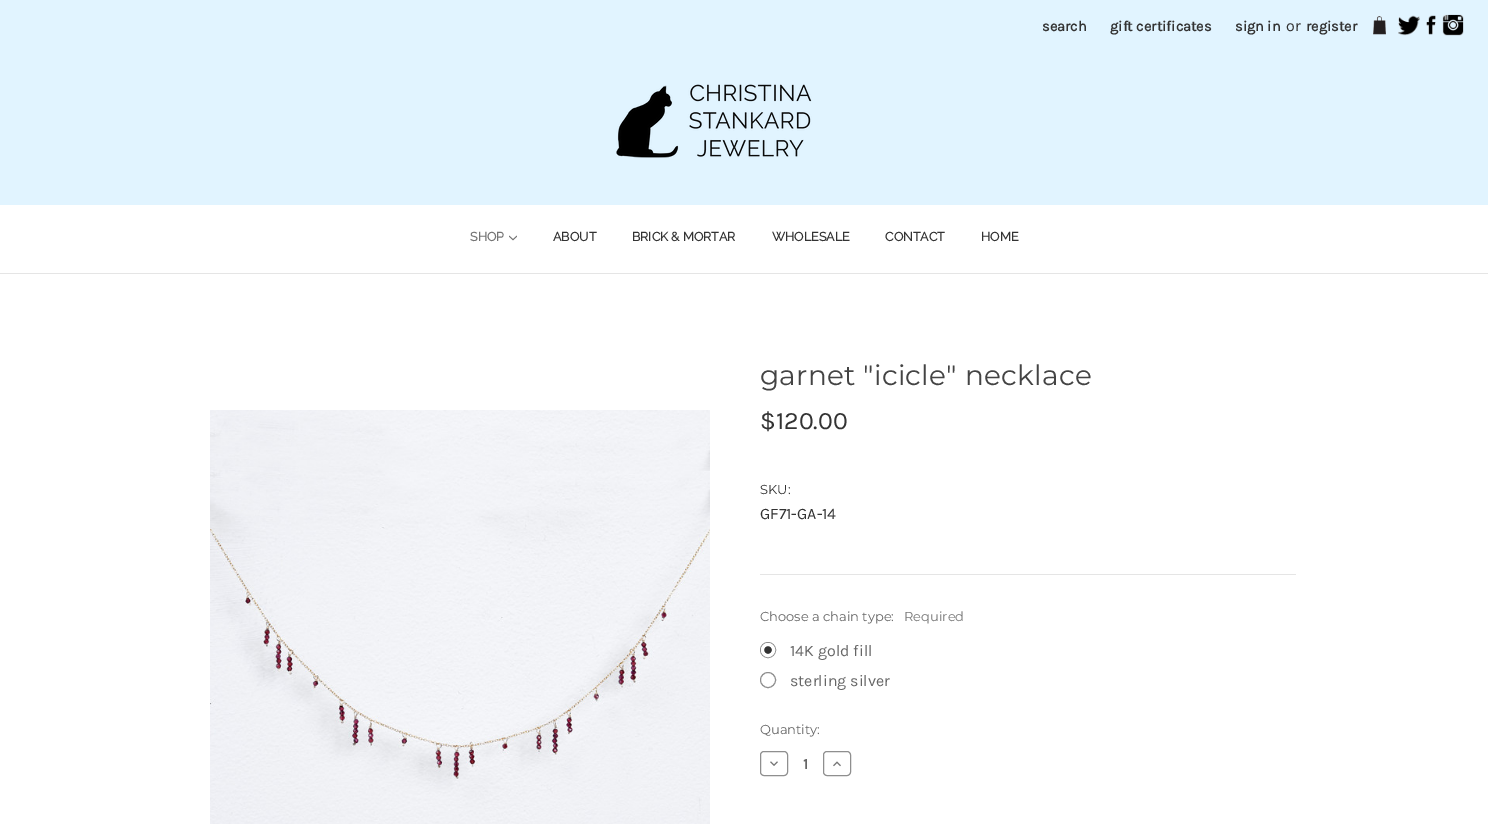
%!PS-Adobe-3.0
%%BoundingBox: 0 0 1488 824
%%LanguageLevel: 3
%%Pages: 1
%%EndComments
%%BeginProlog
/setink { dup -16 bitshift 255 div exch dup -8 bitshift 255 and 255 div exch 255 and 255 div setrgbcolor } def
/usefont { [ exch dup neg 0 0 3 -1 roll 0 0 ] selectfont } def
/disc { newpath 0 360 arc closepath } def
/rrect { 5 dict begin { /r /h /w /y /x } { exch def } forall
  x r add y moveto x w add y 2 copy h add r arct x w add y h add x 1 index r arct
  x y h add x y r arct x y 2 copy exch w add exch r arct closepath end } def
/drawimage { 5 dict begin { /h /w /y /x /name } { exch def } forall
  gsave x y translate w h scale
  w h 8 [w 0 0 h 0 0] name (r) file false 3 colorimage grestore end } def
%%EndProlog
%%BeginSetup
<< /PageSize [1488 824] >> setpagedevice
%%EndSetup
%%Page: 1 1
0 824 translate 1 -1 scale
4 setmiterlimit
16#FFFFFF setink
0 0 1488 824 rectfill
16#E1F4FF setink
0 0 1488 205 rectfill
16#E5E5E5 setink
0 273 1488 1 rectfill
/Karla-Bold 14.5 usefont
16#333333 setink
[
    [(search) 1042 31]
    [(gift certificates) 1110 31]
    [(sign in) 1235 31]
] { aload pop moveto show } forall
/Karla-Regular 16 usefont
1286 31 moveto (or) show
/Karla-Bold 14.5 usefont
1306 31 moveto (register) show
(img1.raw) 1373 16 13 19 drawimage
(img2.raw) 1398 15 22 21 drawimage
(img3.raw) 1426 15 10 20 drawimage
(img4.raw) 1442 14 22 22 drawimage
(img5.raw) 616 84 196 74 drawimage
/Raleway-Bold 12.5 usefont
16#757575 setink
470 241 moveto (SHOP) show
(img6.raw) 509 235 8 6 drawimage
16#333333 setink
[
    [(ABOUT) 553 241]
    [(BRICK & MORTAR) 632 241]
    [(WHOLESALE) 772 241]
    [(CONTACT) 885 241]
    [(HOME) 981 241]
] { aload pop moveto show } forall
(img7.raw) 210 410 500 414 drawimage
16#E5E5E5 setink
760 574 536 1 rectfill
/Montserrat-Regular 28 usefont
16#444444 setink
760 385 moveto 0.25 0 (garnet "icicle" necklace) ashow
/Karla-Regular 25 usefont
16#333333 setink
760 429 moveto ($120.00) show
/Montserrat-Regular 13 usefont
760 494 moveto (SKU:) show
/Karla-Regular 16 usefont
760 519 moveto (GF71-GA-14) show
/Montserrat-Regular 13 usefont
16#666666 setink
760 621 moveto (Choose a chain type:) show
16#757575 setink
904 621 moveto (Required) show
16#8F8F8F setink
768 650 7.5 disc stroke
16#333333 setink
768 650 5.5 disc gsave fill grestore
16#FFFFFF setink
3 setlinewidth
stroke
/Karla-Regular 16 usefont
16#666666 setink
790 656 moveto (14K gold fill) show
16#8F8F8F setink
1 setlinewidth
768 680 7.5 disc stroke
16#666666 setink
790 686 moveto (sterling silver) show
/Montserrat-Regular 13 usefont
760 734 moveto (Quantity:) show
16#8F8F8F setink
760.5 751.5 27 24 3.5 rrect stroke
(img8.raw) 770 761 8 5 drawimage
/Karla-Bold 15 usefont
16#666666 setink
803 769 moveto (1) show
16#8F8F8F setink
823.5 751.5 27 24 3.5 rrect stroke
(img9.raw) 833 761 8 6 drawimage
showpage
%%EOF
